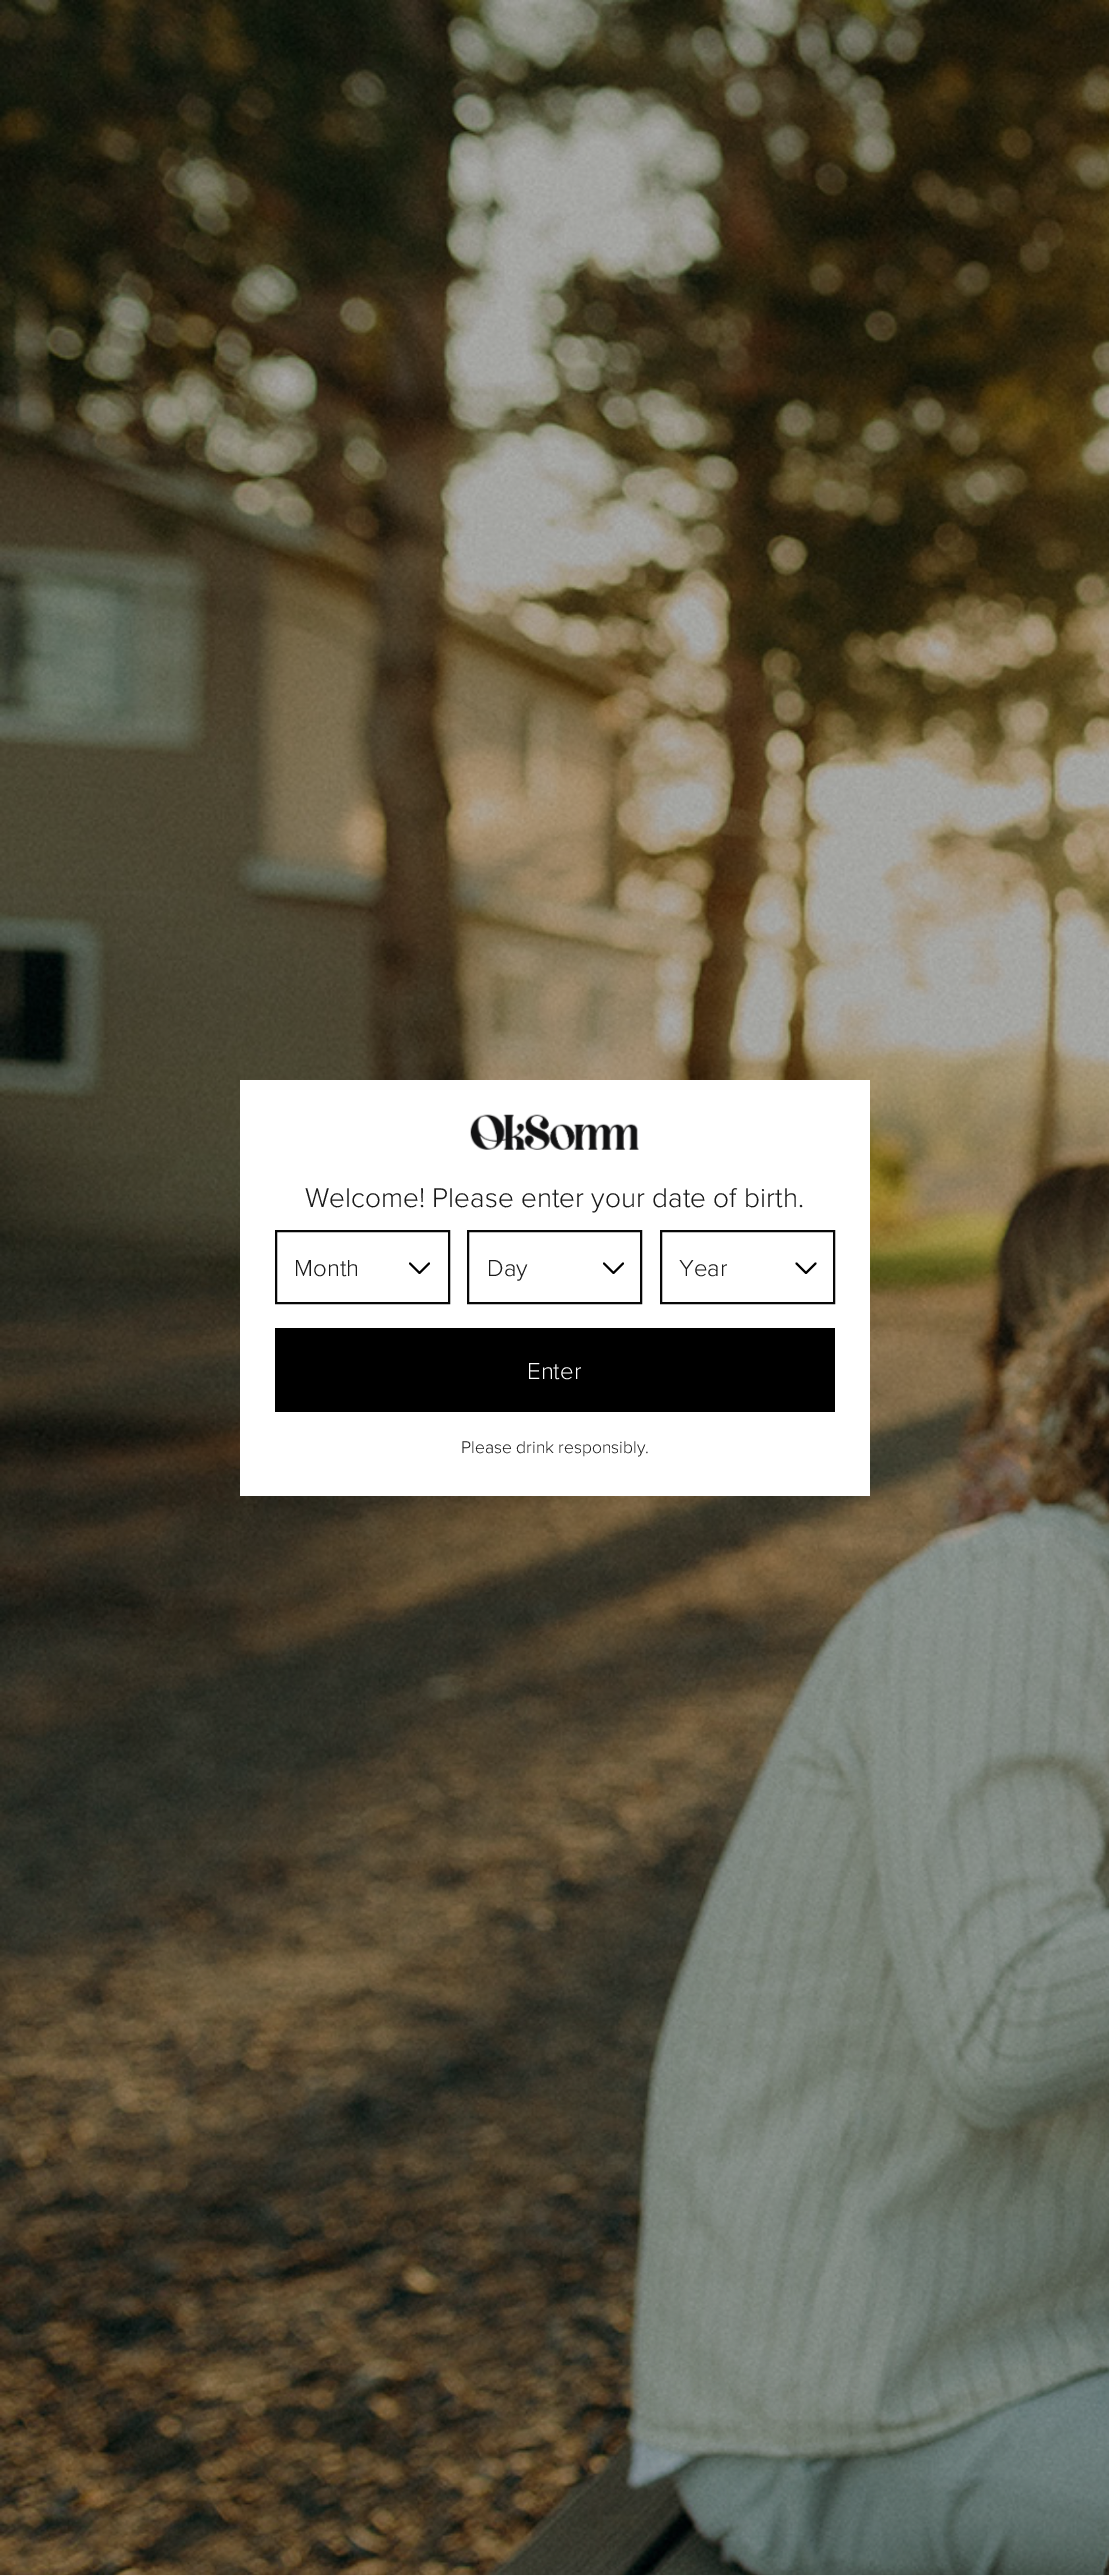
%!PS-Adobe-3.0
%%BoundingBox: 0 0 1109 2575
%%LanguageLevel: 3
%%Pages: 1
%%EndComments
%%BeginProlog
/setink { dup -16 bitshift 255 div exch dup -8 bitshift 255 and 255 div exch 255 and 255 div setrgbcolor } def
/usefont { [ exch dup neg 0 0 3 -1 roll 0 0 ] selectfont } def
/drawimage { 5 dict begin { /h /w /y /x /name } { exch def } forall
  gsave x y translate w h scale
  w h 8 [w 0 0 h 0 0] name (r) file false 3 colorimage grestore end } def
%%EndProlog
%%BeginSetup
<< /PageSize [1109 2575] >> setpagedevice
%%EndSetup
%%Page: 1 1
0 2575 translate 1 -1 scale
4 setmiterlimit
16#FFFFFF setink
0 0 1109 2575 rectfill
(img1.raw) 0 0 1109 2575 drawimage
240 1080 630 416 rectfill
(img2.raw) 470 1114 169 36 drawimage
/ProximaNova-Light 28 usefont
16#1A1A1A setink
305 1207 moveto (Welcome! Please enter your date of birth.) show
16#000000 setink
1.9 setlinewidth
1 setlinecap
1 setlinejoin
429 1263.5 moveto 419.5 1273 lineto 410 1263.5 lineto stroke
16#070707 setink
2 setlinewidth
0 setlinecap
0 setlinejoin
276 1231 173 72 rectstroke
/ProximaNova-Light 24 usefont
16#1A1A1A setink
294 1276 moveto (Month) show
16#000000 setink
1.9 setlinewidth
1 setlinecap
1 setlinejoin
623 1263.5 moveto 613.5 1273 lineto 604 1263.5 lineto stroke
16#070707 setink
2 setlinewidth
0 setlinecap
0 setlinejoin
468 1231 173 72 rectstroke
16#1A1A1A setink
487 1276 moveto (Day) show
16#000000 setink
1.9 setlinewidth
1 setlinecap
1 setlinejoin
815.5 1263.5 moveto 806 1273 lineto 796.5 1263.5 lineto stroke
16#070707 setink
2 setlinewidth
0 setlinecap
0 setlinejoin
661 1231 173 72 rectstroke
16#1A1A1A setink
679 1276 moveto (Year) show
16#000000 setink
275 1328 560 84 rectfill
16#FFFFFF setink
527 1379 moveto (Enter) show
/ProximaNova-Light 17.5 usefont
16#1A1A1A setink
461 1453 moveto (Please drink responsibly.) show
showpage
%%EOF
